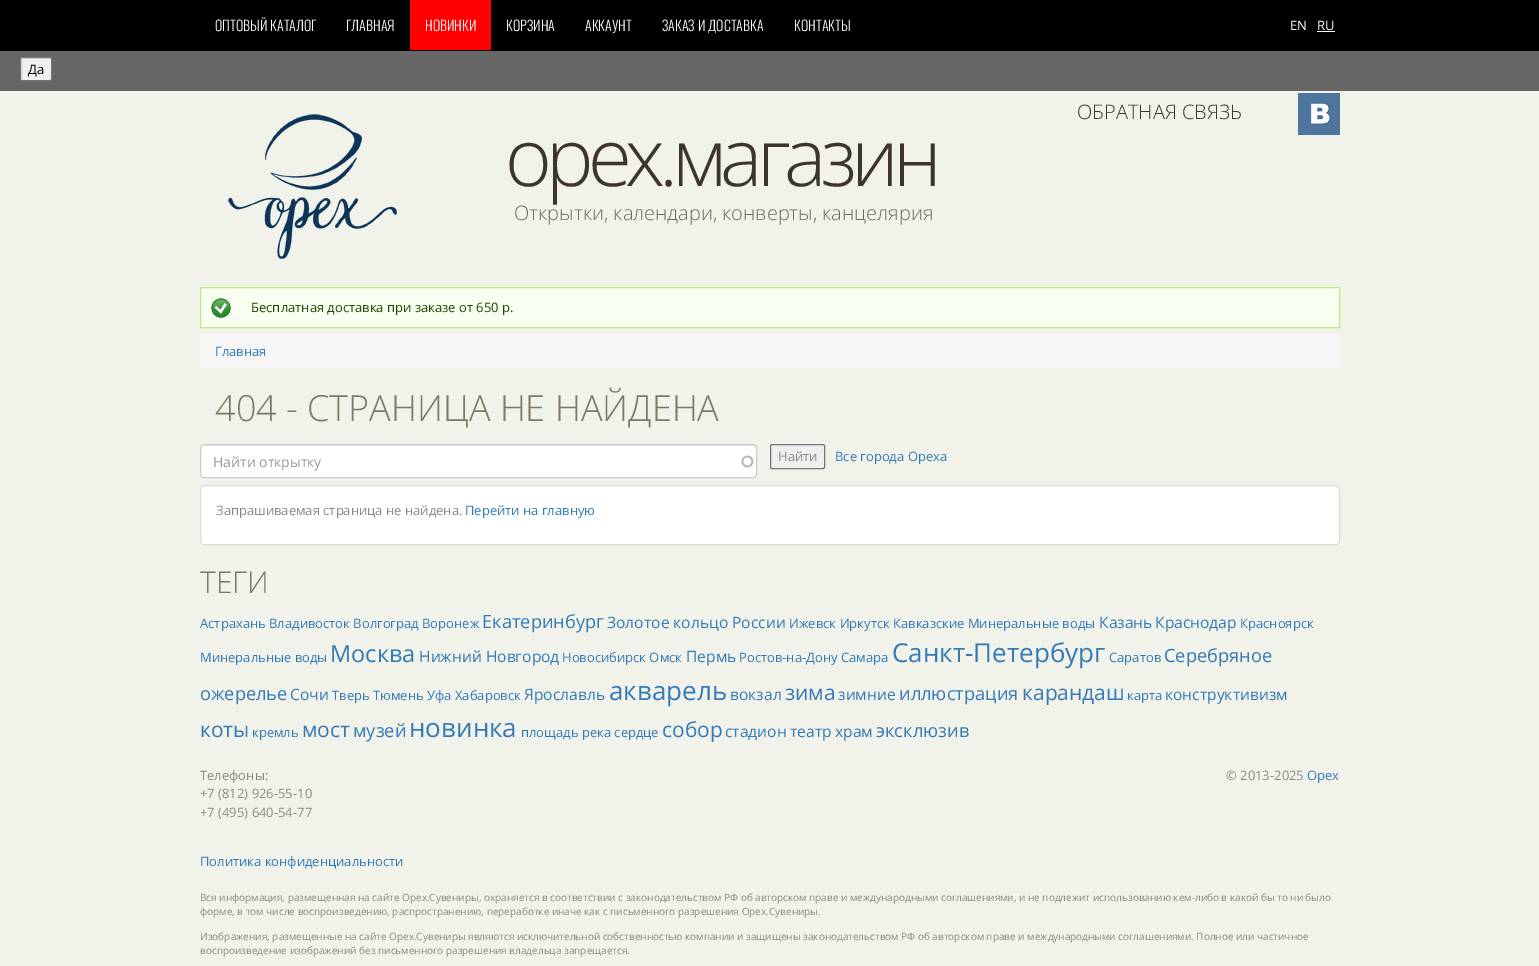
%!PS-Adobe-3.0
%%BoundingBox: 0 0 1539 966
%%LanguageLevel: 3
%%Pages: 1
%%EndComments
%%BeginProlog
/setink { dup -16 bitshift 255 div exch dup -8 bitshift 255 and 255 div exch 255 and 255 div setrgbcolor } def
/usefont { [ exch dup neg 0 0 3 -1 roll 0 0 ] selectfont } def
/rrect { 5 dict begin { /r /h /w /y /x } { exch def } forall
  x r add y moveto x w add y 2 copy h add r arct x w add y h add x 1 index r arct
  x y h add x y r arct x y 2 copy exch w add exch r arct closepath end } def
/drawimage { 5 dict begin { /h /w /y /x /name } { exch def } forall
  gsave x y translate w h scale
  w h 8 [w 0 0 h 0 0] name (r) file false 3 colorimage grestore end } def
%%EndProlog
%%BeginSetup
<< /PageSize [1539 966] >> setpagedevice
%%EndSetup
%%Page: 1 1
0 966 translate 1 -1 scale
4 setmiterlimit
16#F1F2E9 setink
0 0 1539 966 rectfill
16#000000 setink
0 0 1539 51 rectfill
/Oswald-Light 14 usefont
16#FFFFFF setink
215 31 moveto (ОПТОВЫЙ КАТАЛОГ) show
346 31 moveto (ГЛАВНАЯ) show
16#FF0000 setink
410 0 81 50 rectfill
16#FFFFFF setink
[
    [(НОВИНКИ) 425 31]
    [(КОРЗИНА) 506 31]
    [(АККАУНТ) 585 31]
    [(ЗАКАЗ И ДОСТАВКА) 662 31]
    [(КОНТАКТЫ) 794 31]
] { aload pop moveto show } forall
/OpenSans-Regular 13 usefont
1290 30 moveto (EN) show
1317 30 moveto (RU) show
1317 31 18 1 rectfill
16#666666 setink
0 51 1539 40 rectfill
16#EFEFEF setink
20.5 57.5 31 23 1.5 rrect gsave fill grestore
16#767676 setink
stroke
16#000000 setink
28 74 moveto (Да) show
/OpenSans-Light 20 usefont
16#3C342E setink
1077 119 moveto (ОБРАТНАЯ СВЯЗЬ) show
(img1.raw) 1298 93 42 42 drawimage
(img2.raw) 228 114 169 145 drawimage
/OpenSans-Light 80 usefont
505 186 moveto -6 0 (орех.магазин) ashow
/OpenSans-Light 20 usefont
16#696969 setink
514 220 moveto (Открытки, календари, конверты, канцелярия) show
16#F8FFF0 setink
201 288 1138 39 rectfill
(img3.raw) 211 298 20 20 drawimage
16#BBEE77 setink
200.5 287.5 1139 40 rectstroke
/OpenSans-Regular 13 usefont
16#234600 setink
251 312 moveto (Бесплатная доставка при заказе от 650 р.) show
16#F5F5F5 setink
200 334 1140 34 4 rrect fill
16#337AB7 setink
215 356 moveto (Главная) show
/OpenSans-Light 36 usefont
16#7D7764 setink
215 421 moveto (404 - СТРАНИЦА НЕ НАЙДЕНА) show
16#FFFFFF setink
200 444 557 34 4 rrect fill
(img4.raw) 741 455 13 13 drawimage
16#ECECEC setink
204 446 moveto 753 446 lineto 755 446 756 447 756 449 curveto 756 447 755 445 753 445 curveto 204 445 lineto 202 446 lineto 201 447 lineto 201 449 lineto 201 447 202 446 204 446 curveto closepath fill
16#CCCCCC setink
200.5 444.5 556 33 3.5 rrect stroke
/OpenSans-Regular 14 usefont
16#999999 setink
213 467 moveto (Найти открытку) show
16#EFEFEF setink
770.5 444.5 54 24 1.5 rrect gsave fill grestore
16#767676 setink
stroke
/OpenSans-Regular 13 usefont
16#8A8985 setink
778 461 moveto (Найти) show
16#337AB7 setink
835 461 moveto (Все города Ореха) show
16#FFFFFF setink
200.5 485.5 1139 59 3.5 rrect gsave fill grestore
16#DDDDDD setink
stroke
16#8A8985 setink
216 515 moveto (Запрашиваемая страница не найдена.) show
16#337AB7 setink
465 515 moveto (Перейти на главную) show
/OpenSans-Light 30 usefont
16#7D7764 setink
200 593 moveto (ТЕГИ) show
/OpenSans-Regular 13 usefont
16#337AB7 setink
200 628 moveto (Астрахань Владивосток Волгоград Воронеж) show
/OpenSans-Regular 18.25 usefont
482 628 moveto (Екатеринбург) show
/OpenSans-Regular 15.6 usefont
607 628 moveto (Золотое кольцо России) show
/OpenSans-Regular 13 usefont
789 628 moveto (Ижевск Иркутск Кавказские Минеральные воды) show
/OpenSans-Regular 15.6 usefont
1099 628 moveto (Казань) show
1155 628 moveto (Краснодар) show
/OpenSans-Regular 13 usefont
1240 628 moveto (Красноярск) show
200 662 moveto (Минеральные воды) show
/OpenSans-Regular 23.5 usefont
330 662 moveto (Москва) show
/OpenSans-Regular 15.6 usefont
419 662 moveto (Нижний Новгород) show
/OpenSans-Regular 13 usefont
562 662 moveto (Новосибирск Омск) show
/OpenSans-Regular 15.6 usefont
686 662 moveto (Пермь) show
/OpenSans-Regular 13 usefont
739 662 moveto (Ростов-на-Дону Самара) show
/OpenSans-Regular 26 usefont
892 662 moveto (Санкт-Петербург) show
/OpenSans-Regular 13 usefont
1109 662 moveto (Саратов) show
/OpenSans-Regular 18.25 usefont
1164 662 moveto (Серебряное) show
200 700 moveto (ожерелье) show
/OpenSans-Regular 15.6 usefont
290 700 moveto (Сочи) show
/OpenSans-Regular 13 usefont
332 700 moveto (Тверь Тюмень Уфа Хабаровск) show
/OpenSans-Regular 15.6 usefont
524 700 moveto (Ярославль) show
/OpenSans-Regular 26 usefont
609 700 moveto (акварель) show
/OpenSans-Regular 15.6 usefont
730 700 moveto (вокзал) show
/OpenSans-Regular 21 usefont
785 700 moveto (зима) show
/OpenSans-Regular 15.6 usefont
838 700 moveto (зимние) show
/OpenSans-Regular 18.25 usefont
899 700 moveto (иллюстрация) show
/OpenSans-Regular 21 usefont
1022 700 moveto (карандаш) show
/OpenSans-Regular 13 usefont
1127 700 moveto (карта) show
/OpenSans-Regular 15.6 usefont
1165 700 moveto (конструктивизм) show
/OpenSans-Regular 21 usefont
200 737 moveto (коты) show
/OpenSans-Regular 13 usefont
252 737 moveto (кремль) show
/OpenSans-Regular 21 usefont
302 737 moveto (мост) show
/OpenSans-Regular 18.25 usefont
353 737 moveto (музей) show
/OpenSans-Regular 26 usefont
409 737 moveto (новинка) show
/OpenSans-Regular 13 usefont
521 737 moveto (площадь река сердце) show
/OpenSans-Regular 21 usefont
662 737 moveto (собор) show
/OpenSans-Regular 15.6 usefont
[
    [(стадион) 725 737]
    [(театр) 790 737]
    [(храм) 835 737]
] { aload pop moveto show } forall
/OpenSans-Regular 18.25 usefont
876 737 moveto (эксклюзив) show
/OpenSans-Regular 13 usefont
16#8A8985 setink
[
    [(Телефоны:) 200 780]
    [(+7 \(812\) 926-55-10) 200 798]
    [(+7 \(495\) 640-54-77) 200 817]
    [(© 2013-2025) 1226 780]
] { aload pop moveto show } forall
16#337AB7 setink
1307 780 moveto (Орех) show
200 866 moveto (Политика конфиденциальности) show
/OpenSans-Regular 10 usefont
16#8A8985 setink
[
    [(Вся информация, размещенная на сайте Орех.Сувениры, охраняется в соответствии с законодательством РФ об авторском праве и международными соглашениями, и не подлежит использованию кем-либо в какой бы то ни было) 200 901]
    [(форме, в том числе воспроизведению, распространению, переработке иначе как с письменного разрешения Орех.Сувениры.) 200 915]
    [(Изображения, размещенные на сайте Орех.Сувениры являются исключительной собственностью компании и защищены законодательством РФ об авторском праве и международными соглашениями. Полное или частичное) 200 940]
    [(воспроизведение изображений без письменного разрешения владельца запрещается.) 200 954]
] { aload pop moveto show } forall
showpage
%%EOF
